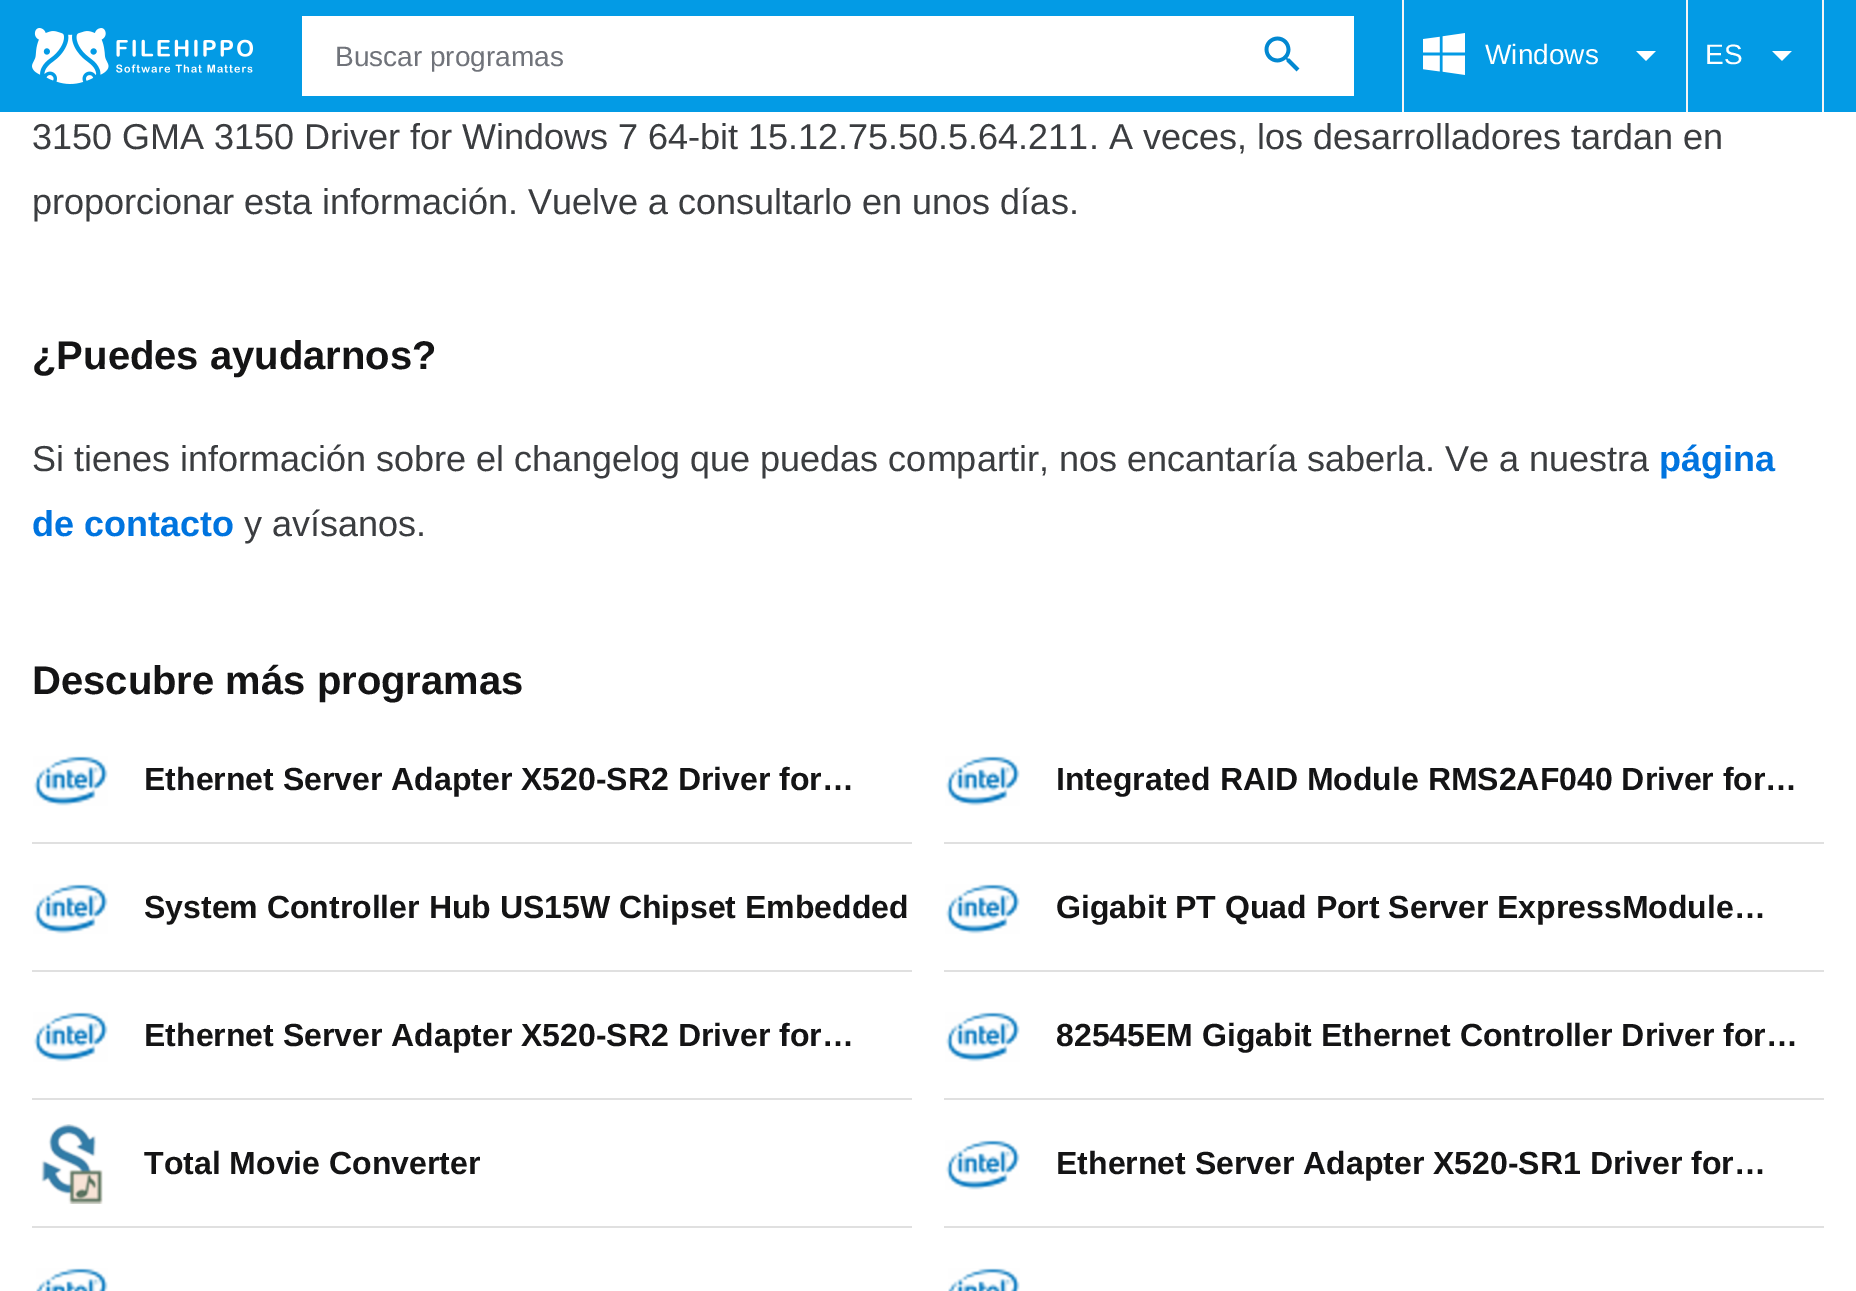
%!PS-Adobe-3.0
%%BoundingBox: 0 0 1856 1291
%%LanguageLevel: 3
%%Pages: 1
%%EndComments
%%BeginProlog
/setink { dup -16 bitshift 255 div exch dup -8 bitshift 255 and 255 div exch 255 and 255 div setrgbcolor } def
/usefont { [ exch dup neg 0 0 3 -1 roll 0 0 ] selectfont } def
/drawimage { 5 dict begin { /h /w /y /x /name } { exch def } forall
  gsave x y translate w h scale
  w h 8 [w 0 0 h 0 0] name (r) file false 3 colorimage grestore end } def
%%EndProlog
%%BeginSetup
<< /PageSize [1856 1291] >> setpagedevice
%%EndSetup
%%Page: 1 1
0 1291 translate 1 -1 scale
4 setmiterlimit
16#FFFFFF setink
0 0 1856 1291 rectfill
16#039BE5 setink
0 0 1856 112 rectfill
(img1.raw) 32 28 221 56 drawimage
16#FFFFFF setink
302 16 1052 80 rectfill
/LiberationSans-Regular 28 usefont
16#70737A setink
335 66 moveto (Buscar programas) show
(img2.raw) 1264 36 36 36 drawimage
16#F5F5F5 setink
1402 0 2 112 rectfill
1686 0 2 112 rectfill
(img3.raw) 1423 33 42 42 drawimage
16#FFFFFF setink
1485 64 moveto (Windows) show
(img4.raw) 1636 51 20 10 drawimage
16#F5F5F5 setink
1822 0 2 112 rectfill
16#FFFFFF setink
1705 64 moveto (ES) show
(img5.raw) 1772 51 20 10 drawimage
/LiberationSans-Regular 36 usefont
16#3B3D40 setink
32 149 moveto (3150 GMA 3150 Driver for Windows 7 64-bit 15.12.75.50.5.64.211. A veces, los desarrolladores tardan en) show
32 214 moveto (proporcionar esta información. Vuelve a consultarlo en unos días.) show
/LiberationSans-Bold 40 usefont
16#141415 setink
32 369 moveto (¿Puedes ayudarnos?) show
/LiberationSans-Regular 36 usefont
16#3B3D40 setink
32 471 moveto (Si tienes información sobre el changelog que puedas compartir, nos encantaría saberla. Ve a nuestra) show
/LiberationSans-Bold 36 usefont
16#0074DF setink
1659 471 moveto (página) show
32 536 moveto (de contacto) show
/LiberationSans-Regular 36 usefont
16#3B3D40 setink
244 536 moveto (y avísanos.) show
/LiberationSans-Bold 40 usefont
16#141415 setink
32 694 moveto (Descubre más programas) show
(img6.raw) 33 756 75 50 drawimage
/LiberationSans-Bold 32 usefont
144 790 moveto (Ethernet Server Adapter X520-SR2 Driver for…) show
16#E0E0E0 setink
32 842 880 2 rectfill
(img7.raw) 945 756 75 50 drawimage
16#141415 setink
1056 790 moveto (Integrated RAID Module RMS2AF040 Driver for…) show
16#E0E0E0 setink
944 842 880 2 rectfill
(img8.raw) 33 884 75 50 drawimage
16#141415 setink
144 918 moveto (System Controller Hub US15W Chipset Embedded) show
16#E0E0E0 setink
32 970 880 2 rectfill
(img9.raw) 945 884 75 50 drawimage
16#141415 setink
1056 918 moveto (Gigabit PT Quad Port Server ExpressModule…) show
16#E0E0E0 setink
944 970 880 2 rectfill
(img10.raw) 33 1012 75 50 drawimage
16#141415 setink
144 1046 moveto (Ethernet Server Adapter X520-SR2 Driver for…) show
16#E0E0E0 setink
32 1098 880 2 rectfill
(img11.raw) 945 1012 75 50 drawimage
16#141415 setink
1056 1046 moveto (82545EM Gigabit Ethernet Controller Driver for…) show
16#E0E0E0 setink
944 1098 880 2 rectfill
(img12.raw) 41 1124 62 80 drawimage
16#141415 setink
144 1174 moveto (Total Movie Converter) show
16#E0E0E0 setink
32 1226 880 2 rectfill
(img9.raw) 945 1140 75 50 drawimage
16#141415 setink
1056 1174 moveto (Ethernet Server Adapter X520-SR1 Driver for…) show
16#E0E0E0 setink
944 1226 880 2 rectfill
(img13.raw) 36 1268 72 23 drawimage
(img14.raw) 948 1268 72 23 drawimage
showpage
%%EOF
